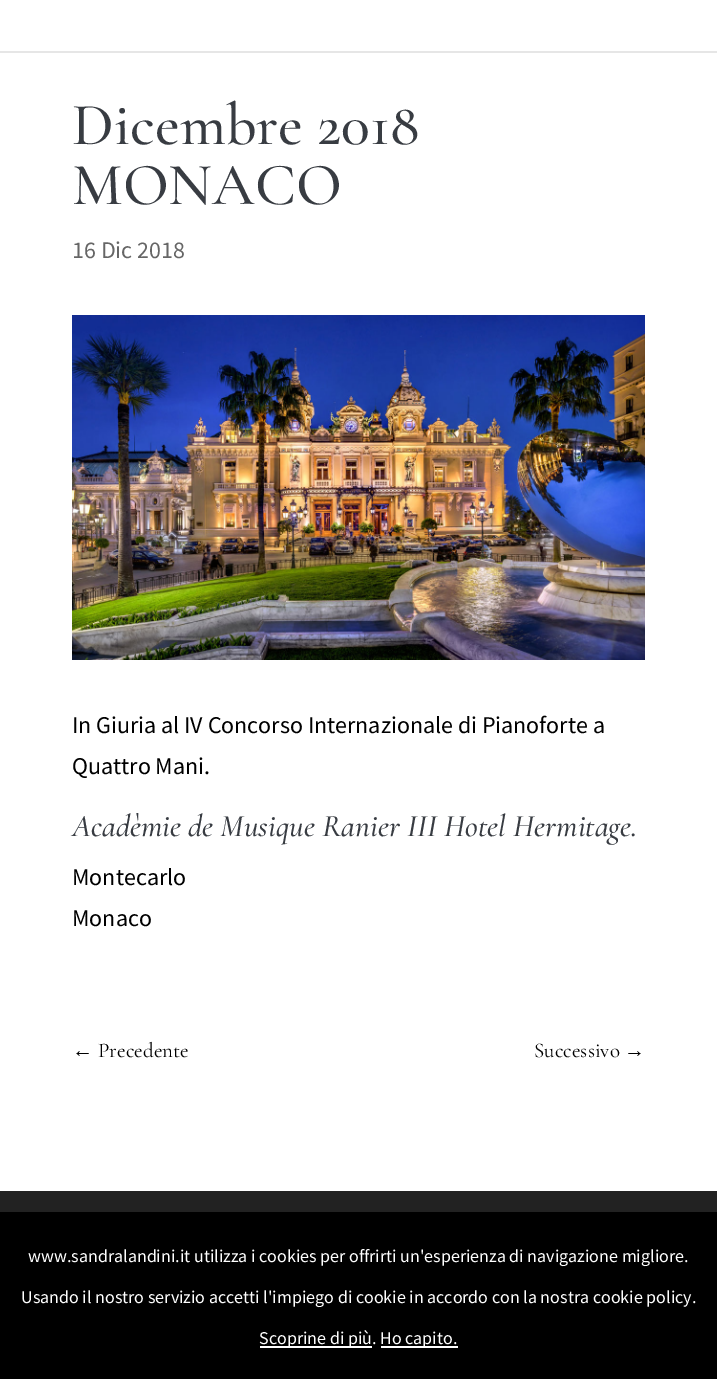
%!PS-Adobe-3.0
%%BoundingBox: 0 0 717 1379
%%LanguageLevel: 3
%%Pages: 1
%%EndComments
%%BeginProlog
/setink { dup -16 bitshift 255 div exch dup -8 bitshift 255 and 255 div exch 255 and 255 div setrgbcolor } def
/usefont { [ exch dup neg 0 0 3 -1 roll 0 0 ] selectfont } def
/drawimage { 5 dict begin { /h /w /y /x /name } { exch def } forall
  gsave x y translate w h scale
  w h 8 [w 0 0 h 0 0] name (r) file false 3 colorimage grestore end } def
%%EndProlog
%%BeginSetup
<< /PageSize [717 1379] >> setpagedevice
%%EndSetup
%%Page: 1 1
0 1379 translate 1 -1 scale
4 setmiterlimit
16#FFFFFF setink
0 0 717 1379 rectfill
16#E6E6E6 setink
0 51 717 2 rectfill
/CormorantGaramond-Medium 60 usefont
16#383C42 setink
72 144 moveto (Dicembre 2018) show
72 204 moveto (MONACO) show
/SourceSansPro-Regular 24 usefont
16#666666 setink
72 258 moveto (16 Dic 2018) show
(img1.raw) 72 315 573 345 drawimage
16#000000 setink
72 733 moveto (In Giuria al IV Concorso Internazionale di Pianoforte a) show
72 774 moveto (Quattro Mani.) show
/CormorantGaramond-MediumItalic 31.5 usefont
16#383C42 setink
72 836 moveto (Acadèmie de Musique Ranier III Hotel Hermitage.) show
/SourceSansPro-Regular 24 usefont
16#000000 setink
72 885 moveto (Montecarlo) show
72 926 moveto (Monaco) show
/LiberationSerif-Regular 21 usefont
72 1057 moveto (←) show
/CormorantGaramond-Regular 21 usefont
98 1057 moveto (Precedente) show
534 1057 moveto (Successivo) show
/LiberationSerif-Regular 21 usefont
624 1057 moveto (→) show
16#222222 setink
0 1191 717 21 rectfill
16#000000 setink
0 1212 717 167 rectfill
/SourceSansPro-Regular 18 usefont
16#FFFFFF setink
28 1262 moveto (www.sandralandini.it utilizza i cookies per offrirti un'esperienza di navigazione migliore.) show
21 1303 moveto (Usando il nostro servizio accetti l'impiego di cookie in accordo con la nostra cookie policy.) show
260 1346 112 2 rectfill
259 1344 moveto (Scoprine di più.) show
381 1346 77 2 rectfill
380 1344 moveto (Ho capito.) show
showpage
%%EOF
